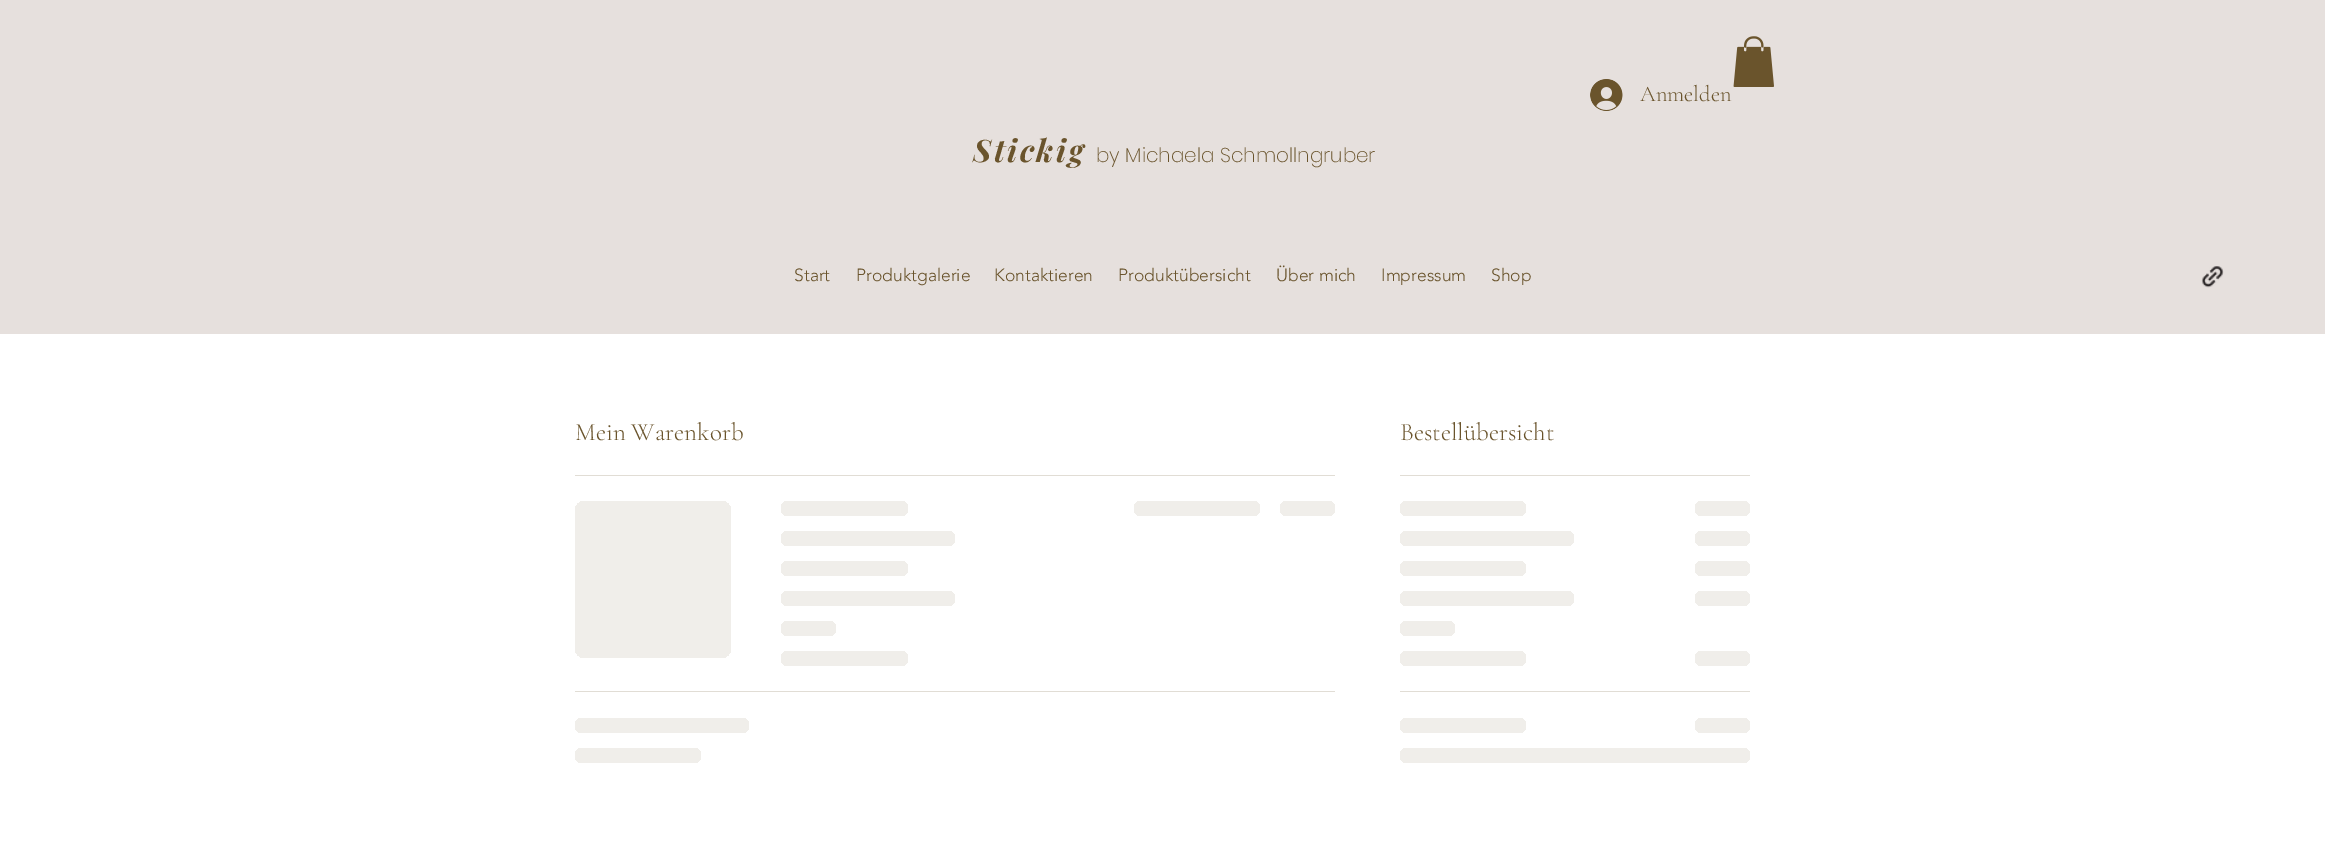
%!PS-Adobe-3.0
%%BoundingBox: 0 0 2325 843
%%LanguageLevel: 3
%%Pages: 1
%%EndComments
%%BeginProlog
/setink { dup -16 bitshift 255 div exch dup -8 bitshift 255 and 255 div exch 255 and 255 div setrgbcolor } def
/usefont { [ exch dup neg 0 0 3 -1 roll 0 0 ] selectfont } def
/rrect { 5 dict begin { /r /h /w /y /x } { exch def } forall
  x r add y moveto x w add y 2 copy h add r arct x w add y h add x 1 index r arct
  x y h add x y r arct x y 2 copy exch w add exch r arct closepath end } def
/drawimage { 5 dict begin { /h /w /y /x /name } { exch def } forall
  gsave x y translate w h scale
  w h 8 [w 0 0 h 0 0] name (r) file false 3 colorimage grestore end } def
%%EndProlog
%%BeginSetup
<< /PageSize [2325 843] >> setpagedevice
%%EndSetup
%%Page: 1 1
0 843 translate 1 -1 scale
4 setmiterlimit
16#FFFFFF setink
0 0 2325 843 rectfill
16#E6E0DD setink
0 0 2325 334 rectfill
(img1.raw) 1733 36 41 51 drawimage
(img2.raw) 1590 79 33 32 drawimage
/CormorantGaramond-Light 22.5 usefont
16#6A542C setink
1640 101 moveto (Anmelden) show
/PlayfairDisplay-BoldItalic 31 usefont
973 162 moveto 2.5 0 (Stickig) ashow
/Poppins-ExtraLight 20 usefont
1096 162 moveto (by Michaela Schmollngruber) show
/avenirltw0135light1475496-Light 17.5 usefont
[
    [(Start) 794 281]
    [(Produktgalerie) 856 281]
    [(Kontaktieren) 994 281]
    [(Produktübersicht) 1118 281]
    [(Über mich) 1276 281]
    [(Impressum) 1381 281]
    [(Shop) 1491 281]
] { aload pop moveto show } forall
(img3.raw) 2201 266 23 22 drawimage
16#E1DDD5 setink
575 475 760 1 rectfill
/CormorantGaramond-Light 25 usefont
16#6A542C setink
575 440 moveto (Mein Warenkorb) show
gsave 575 501 156 157 10 rrect clip newpath
<< /ShadingType 2 /ColorSpace /DeviceRGB /Coords [575 579 1200 579] /Extend [true true] /Function << /FunctionType 3 /Domain [0 1] /Functions [<< /FunctionType 2 /Domain [0 1] /C0 [0.941 0.933 0.918] /C1 [0.941 0.933 0.918] /N 1 >> << /FunctionType 2 /Domain [0 1] /C0 [0.941 0.933 0.918] /C1 [0.882 0.867 0.835] /N 1 >> << /FunctionType 2 /Domain [0 1] /C0 [0.882 0.867 0.835] /C1 [0.941 0.933 0.918] /N 1 >> << /FunctionType 2 /Domain [0 1] /C0 [0.941 0.933 0.918] /C1 [0.941 0.933 0.918] /N 1 >>] /Bounds [0.25 0.37 0.63] /Encode [0 1 0 1 0 1 0 1] >> >> shfill grestore
gsave 781 501 127 15 7.5 rrect clip newpath
<< /ShadingType 2 /ColorSpace /DeviceRGB /Coords [781 509 1286 509] /Extend [true true] /Function << /FunctionType 3 /Domain [0 1] /Functions [<< /FunctionType 2 /Domain [0 1] /C0 [0.941 0.933 0.918] /C1 [0.941 0.933 0.918] /N 1 >> << /FunctionType 2 /Domain [0 1] /C0 [0.941 0.933 0.918] /C1 [0.882 0.867 0.835] /N 1 >> << /FunctionType 2 /Domain [0 1] /C0 [0.882 0.867 0.835] /C1 [0.941 0.933 0.918] /N 1 >> << /FunctionType 2 /Domain [0 1] /C0 [0.941 0.933 0.918] /C1 [0.941 0.933 0.918] /N 1 >>] /Bounds [0.25 0.37 0.63] /Encode [0 1 0 1 0 1 0 1] >> >> shfill grestore
gsave 781 531 174 15 7.5 rrect clip newpath
<< /ShadingType 2 /ColorSpace /DeviceRGB /Coords [781 539 1476 539] /Extend [true true] /Function << /FunctionType 3 /Domain [0 1] /Functions [<< /FunctionType 2 /Domain [0 1] /C0 [0.941 0.933 0.918] /C1 [0.941 0.933 0.918] /N 1 >> << /FunctionType 2 /Domain [0 1] /C0 [0.941 0.933 0.918] /C1 [0.882 0.867 0.835] /N 1 >> << /FunctionType 2 /Domain [0 1] /C0 [0.882 0.867 0.835] /C1 [0.941 0.933 0.918] /N 1 >> << /FunctionType 2 /Domain [0 1] /C0 [0.941 0.933 0.918] /C1 [0.941 0.933 0.918] /N 1 >>] /Bounds [0.25 0.37 0.63] /Encode [0 1 0 1 0 1 0 1] >> >> shfill grestore
gsave 781 561 127 15 7.5 rrect clip newpath
<< /ShadingType 2 /ColorSpace /DeviceRGB /Coords [781 569 1286 569] /Extend [true true] /Function << /FunctionType 3 /Domain [0 1] /Functions [<< /FunctionType 2 /Domain [0 1] /C0 [0.941 0.933 0.918] /C1 [0.941 0.933 0.918] /N 1 >> << /FunctionType 2 /Domain [0 1] /C0 [0.941 0.933 0.918] /C1 [0.882 0.867 0.835] /N 1 >> << /FunctionType 2 /Domain [0 1] /C0 [0.882 0.867 0.835] /C1 [0.941 0.933 0.918] /N 1 >> << /FunctionType 2 /Domain [0 1] /C0 [0.941 0.933 0.918] /C1 [0.941 0.933 0.918] /N 1 >>] /Bounds [0.25 0.37 0.63] /Encode [0 1 0 1 0 1 0 1] >> >> shfill grestore
gsave 781 591 174 15 7.5 rrect clip newpath
<< /ShadingType 2 /ColorSpace /DeviceRGB /Coords [781 599 1476 599] /Extend [true true] /Function << /FunctionType 3 /Domain [0 1] /Functions [<< /FunctionType 2 /Domain [0 1] /C0 [0.941 0.933 0.918] /C1 [0.941 0.933 0.918] /N 1 >> << /FunctionType 2 /Domain [0 1] /C0 [0.941 0.933 0.918] /C1 [0.882 0.867 0.835] /N 1 >> << /FunctionType 2 /Domain [0 1] /C0 [0.882 0.867 0.835] /C1 [0.941 0.933 0.918] /N 1 >> << /FunctionType 2 /Domain [0 1] /C0 [0.941 0.933 0.918] /C1 [0.941 0.933 0.918] /N 1 >>] /Bounds [0.25 0.37 0.63] /Encode [0 1 0 1 0 1 0 1] >> >> shfill grestore
gsave 781 621 55 15 7.5 rrect clip newpath
<< /ShadingType 2 /ColorSpace /DeviceRGB /Coords [781 629 1001 629] /Extend [true true] /Function << /FunctionType 3 /Domain [0 1] /Functions [<< /FunctionType 2 /Domain [0 1] /C0 [0.941 0.933 0.918] /C1 [0.941 0.933 0.918] /N 1 >> << /FunctionType 2 /Domain [0 1] /C0 [0.941 0.933 0.918] /C1 [0.882 0.867 0.835] /N 1 >> << /FunctionType 2 /Domain [0 1] /C0 [0.882 0.867 0.835] /C1 [0.941 0.933 0.918] /N 1 >> << /FunctionType 2 /Domain [0 1] /C0 [0.941 0.933 0.918] /C1 [0.941 0.933 0.918] /N 1 >>] /Bounds [0.25 0.37 0.63] /Encode [0 1 0 1 0 1 0 1] >> >> shfill grestore
gsave 781 651 127 15 7.5 rrect clip newpath
<< /ShadingType 2 /ColorSpace /DeviceRGB /Coords [781 659 1286 659] /Extend [true true] /Function << /FunctionType 3 /Domain [0 1] /Functions [<< /FunctionType 2 /Domain [0 1] /C0 [0.941 0.933 0.918] /C1 [0.941 0.933 0.918] /N 1 >> << /FunctionType 2 /Domain [0 1] /C0 [0.941 0.933 0.918] /C1 [0.882 0.867 0.835] /N 1 >> << /FunctionType 2 /Domain [0 1] /C0 [0.882 0.867 0.835] /C1 [0.941 0.933 0.918] /N 1 >> << /FunctionType 2 /Domain [0 1] /C0 [0.941 0.933 0.918] /C1 [0.941 0.933 0.918] /N 1 >>] /Bounds [0.25 0.37 0.63] /Encode [0 1 0 1 0 1 0 1] >> >> shfill grestore
gsave 1134 501 126 15 7.5 rrect clip newpath
<< /ShadingType 2 /ColorSpace /DeviceRGB /Coords [1134 509 1639 509] /Extend [true true] /Function << /FunctionType 3 /Domain [0 1] /Functions [<< /FunctionType 2 /Domain [0 1] /C0 [0.941 0.933 0.918] /C1 [0.941 0.933 0.918] /N 1 >> << /FunctionType 2 /Domain [0 1] /C0 [0.941 0.933 0.918] /C1 [0.882 0.867 0.835] /N 1 >> << /FunctionType 2 /Domain [0 1] /C0 [0.882 0.867 0.835] /C1 [0.941 0.933 0.918] /N 1 >> << /FunctionType 2 /Domain [0 1] /C0 [0.941 0.933 0.918] /C1 [0.941 0.933 0.918] /N 1 >>] /Bounds [0.25 0.37 0.63] /Encode [0 1 0 1 0 1 0 1] >> >> shfill grestore
gsave 1280 501 55 15 7.5 rrect clip newpath
<< /ShadingType 2 /ColorSpace /DeviceRGB /Coords [1280 509 1500 509] /Extend [true true] /Function << /FunctionType 3 /Domain [0 1] /Functions [<< /FunctionType 2 /Domain [0 1] /C0 [0.941 0.933 0.918] /C1 [0.941 0.933 0.918] /N 1 >> << /FunctionType 2 /Domain [0 1] /C0 [0.941 0.933 0.918] /C1 [0.882 0.867 0.835] /N 1 >> << /FunctionType 2 /Domain [0 1] /C0 [0.882 0.867 0.835] /C1 [0.941 0.933 0.918] /N 1 >> << /FunctionType 2 /Domain [0 1] /C0 [0.941 0.933 0.918] /C1 [0.941 0.933 0.918] /N 1 >>] /Bounds [0.25 0.37 0.63] /Encode [0 1 0 1 0 1 0 1] >> >> shfill grestore
16#E1DDD5 setink
575 691 760 1 rectfill
gsave 575 718 174 15 7.5 rrect clip newpath
<< /ShadingType 2 /ColorSpace /DeviceRGB /Coords [575 725 1270 725] /Extend [true true] /Function << /FunctionType 3 /Domain [0 1] /Functions [<< /FunctionType 2 /Domain [0 1] /C0 [0.941 0.933 0.918] /C1 [0.941 0.933 0.918] /N 1 >> << /FunctionType 2 /Domain [0 1] /C0 [0.941 0.933 0.918] /C1 [0.882 0.867 0.835] /N 1 >> << /FunctionType 2 /Domain [0 1] /C0 [0.882 0.867 0.835] /C1 [0.941 0.933 0.918] /N 1 >> << /FunctionType 2 /Domain [0 1] /C0 [0.941 0.933 0.918] /C1 [0.941 0.933 0.918] /N 1 >>] /Bounds [0.25 0.37 0.63] /Encode [0 1 0 1 0 1 0 1] >> >> shfill grestore
gsave 575 748 126 15 7.5 rrect clip newpath
<< /ShadingType 2 /ColorSpace /DeviceRGB /Coords [575 755 1080 755] /Extend [true true] /Function << /FunctionType 3 /Domain [0 1] /Functions [<< /FunctionType 2 /Domain [0 1] /C0 [0.941 0.933 0.918] /C1 [0.941 0.933 0.918] /N 1 >> << /FunctionType 2 /Domain [0 1] /C0 [0.941 0.933 0.918] /C1 [0.882 0.867 0.835] /N 1 >> << /FunctionType 2 /Domain [0 1] /C0 [0.882 0.867 0.835] /C1 [0.941 0.933 0.918] /N 1 >> << /FunctionType 2 /Domain [0 1] /C0 [0.941 0.933 0.918] /C1 [0.941 0.933 0.918] /N 1 >>] /Bounds [0.25 0.37 0.63] /Encode [0 1 0 1 0 1 0 1] >> >> shfill grestore
1400 475 350 1 rectfill
16#6A542C setink
1400 440 moveto (Bestellübersicht) show
gsave 1400 501 126 15 7.5 rrect clip newpath
<< /ShadingType 2 /ColorSpace /DeviceRGB /Coords [1400 509 1905 509] /Extend [true true] /Function << /FunctionType 3 /Domain [0 1] /Functions [<< /FunctionType 2 /Domain [0 1] /C0 [0.941 0.933 0.918] /C1 [0.941 0.933 0.918] /N 1 >> << /FunctionType 2 /Domain [0 1] /C0 [0.941 0.933 0.918] /C1 [0.882 0.867 0.835] /N 1 >> << /FunctionType 2 /Domain [0 1] /C0 [0.882 0.867 0.835] /C1 [0.941 0.933 0.918] /N 1 >> << /FunctionType 2 /Domain [0 1] /C0 [0.941 0.933 0.918] /C1 [0.941 0.933 0.918] /N 1 >>] /Bounds [0.25 0.37 0.63] /Encode [0 1 0 1 0 1 0 1] >> >> shfill grestore
gsave 1695 501 55 15 7.5 rrect clip newpath
<< /ShadingType 2 /ColorSpace /DeviceRGB /Coords [1695 509 1915 509] /Extend [true true] /Function << /FunctionType 3 /Domain [0 1] /Functions [<< /FunctionType 2 /Domain [0 1] /C0 [0.941 0.933 0.918] /C1 [0.941 0.933 0.918] /N 1 >> << /FunctionType 2 /Domain [0 1] /C0 [0.941 0.933 0.918] /C1 [0.882 0.867 0.835] /N 1 >> << /FunctionType 2 /Domain [0 1] /C0 [0.882 0.867 0.835] /C1 [0.941 0.933 0.918] /N 1 >> << /FunctionType 2 /Domain [0 1] /C0 [0.941 0.933 0.918] /C1 [0.941 0.933 0.918] /N 1 >>] /Bounds [0.25 0.37 0.63] /Encode [0 1 0 1 0 1 0 1] >> >> shfill grestore
gsave 1400 531 174 15 7.5 rrect clip newpath
<< /ShadingType 2 /ColorSpace /DeviceRGB /Coords [1400 539 2095 539] /Extend [true true] /Function << /FunctionType 3 /Domain [0 1] /Functions [<< /FunctionType 2 /Domain [0 1] /C0 [0.941 0.933 0.918] /C1 [0.941 0.933 0.918] /N 1 >> << /FunctionType 2 /Domain [0 1] /C0 [0.941 0.933 0.918] /C1 [0.882 0.867 0.835] /N 1 >> << /FunctionType 2 /Domain [0 1] /C0 [0.882 0.867 0.835] /C1 [0.941 0.933 0.918] /N 1 >> << /FunctionType 2 /Domain [0 1] /C0 [0.941 0.933 0.918] /C1 [0.941 0.933 0.918] /N 1 >>] /Bounds [0.25 0.37 0.63] /Encode [0 1 0 1 0 1 0 1] >> >> shfill grestore
gsave 1695 531 55 15 7.5 rrect clip newpath
<< /ShadingType 2 /ColorSpace /DeviceRGB /Coords [1695 539 1915 539] /Extend [true true] /Function << /FunctionType 3 /Domain [0 1] /Functions [<< /FunctionType 2 /Domain [0 1] /C0 [0.941 0.933 0.918] /C1 [0.941 0.933 0.918] /N 1 >> << /FunctionType 2 /Domain [0 1] /C0 [0.941 0.933 0.918] /C1 [0.882 0.867 0.835] /N 1 >> << /FunctionType 2 /Domain [0 1] /C0 [0.882 0.867 0.835] /C1 [0.941 0.933 0.918] /N 1 >> << /FunctionType 2 /Domain [0 1] /C0 [0.941 0.933 0.918] /C1 [0.941 0.933 0.918] /N 1 >>] /Bounds [0.25 0.37 0.63] /Encode [0 1 0 1 0 1 0 1] >> >> shfill grestore
gsave 1400 561 126 15 7.5 rrect clip newpath
<< /ShadingType 2 /ColorSpace /DeviceRGB /Coords [1400 569 1905 569] /Extend [true true] /Function << /FunctionType 3 /Domain [0 1] /Functions [<< /FunctionType 2 /Domain [0 1] /C0 [0.941 0.933 0.918] /C1 [0.941 0.933 0.918] /N 1 >> << /FunctionType 2 /Domain [0 1] /C0 [0.941 0.933 0.918] /C1 [0.882 0.867 0.835] /N 1 >> << /FunctionType 2 /Domain [0 1] /C0 [0.882 0.867 0.835] /C1 [0.941 0.933 0.918] /N 1 >> << /FunctionType 2 /Domain [0 1] /C0 [0.941 0.933 0.918] /C1 [0.941 0.933 0.918] /N 1 >>] /Bounds [0.25 0.37 0.63] /Encode [0 1 0 1 0 1 0 1] >> >> shfill grestore
gsave 1695 561 55 15 7.5 rrect clip newpath
<< /ShadingType 2 /ColorSpace /DeviceRGB /Coords [1695 569 1915 569] /Extend [true true] /Function << /FunctionType 3 /Domain [0 1] /Functions [<< /FunctionType 2 /Domain [0 1] /C0 [0.941 0.933 0.918] /C1 [0.941 0.933 0.918] /N 1 >> << /FunctionType 2 /Domain [0 1] /C0 [0.941 0.933 0.918] /C1 [0.882 0.867 0.835] /N 1 >> << /FunctionType 2 /Domain [0 1] /C0 [0.882 0.867 0.835] /C1 [0.941 0.933 0.918] /N 1 >> << /FunctionType 2 /Domain [0 1] /C0 [0.941 0.933 0.918] /C1 [0.941 0.933 0.918] /N 1 >>] /Bounds [0.25 0.37 0.63] /Encode [0 1 0 1 0 1 0 1] >> >> shfill grestore
gsave 1400 591 174 15 7.5 rrect clip newpath
<< /ShadingType 2 /ColorSpace /DeviceRGB /Coords [1400 599 2095 599] /Extend [true true] /Function << /FunctionType 3 /Domain [0 1] /Functions [<< /FunctionType 2 /Domain [0 1] /C0 [0.941 0.933 0.918] /C1 [0.941 0.933 0.918] /N 1 >> << /FunctionType 2 /Domain [0 1] /C0 [0.941 0.933 0.918] /C1 [0.882 0.867 0.835] /N 1 >> << /FunctionType 2 /Domain [0 1] /C0 [0.882 0.867 0.835] /C1 [0.941 0.933 0.918] /N 1 >> << /FunctionType 2 /Domain [0 1] /C0 [0.941 0.933 0.918] /C1 [0.941 0.933 0.918] /N 1 >>] /Bounds [0.25 0.37 0.63] /Encode [0 1 0 1 0 1 0 1] >> >> shfill grestore
gsave 1695 591 55 15 7.5 rrect clip newpath
<< /ShadingType 2 /ColorSpace /DeviceRGB /Coords [1695 599 1915 599] /Extend [true true] /Function << /FunctionType 3 /Domain [0 1] /Functions [<< /FunctionType 2 /Domain [0 1] /C0 [0.941 0.933 0.918] /C1 [0.941 0.933 0.918] /N 1 >> << /FunctionType 2 /Domain [0 1] /C0 [0.941 0.933 0.918] /C1 [0.882 0.867 0.835] /N 1 >> << /FunctionType 2 /Domain [0 1] /C0 [0.882 0.867 0.835] /C1 [0.941 0.933 0.918] /N 1 >> << /FunctionType 2 /Domain [0 1] /C0 [0.941 0.933 0.918] /C1 [0.941 0.933 0.918] /N 1 >>] /Bounds [0.25 0.37 0.63] /Encode [0 1 0 1 0 1 0 1] >> >> shfill grestore
gsave 1400 621 55 15 7.5 rrect clip newpath
<< /ShadingType 2 /ColorSpace /DeviceRGB /Coords [1400 629 1620 629] /Extend [true true] /Function << /FunctionType 3 /Domain [0 1] /Functions [<< /FunctionType 2 /Domain [0 1] /C0 [0.941 0.933 0.918] /C1 [0.941 0.933 0.918] /N 1 >> << /FunctionType 2 /Domain [0 1] /C0 [0.941 0.933 0.918] /C1 [0.882 0.867 0.835] /N 1 >> << /FunctionType 2 /Domain [0 1] /C0 [0.882 0.867 0.835] /C1 [0.941 0.933 0.918] /N 1 >> << /FunctionType 2 /Domain [0 1] /C0 [0.941 0.933 0.918] /C1 [0.941 0.933 0.918] /N 1 >>] /Bounds [0.25 0.37 0.63] /Encode [0 1 0 1 0 1 0 1] >> >> shfill grestore
gsave 1400 651 126 15 7.5 rrect clip newpath
<< /ShadingType 2 /ColorSpace /DeviceRGB /Coords [1400 659 1905 659] /Extend [true true] /Function << /FunctionType 3 /Domain [0 1] /Functions [<< /FunctionType 2 /Domain [0 1] /C0 [0.941 0.933 0.918] /C1 [0.941 0.933 0.918] /N 1 >> << /FunctionType 2 /Domain [0 1] /C0 [0.941 0.933 0.918] /C1 [0.882 0.867 0.835] /N 1 >> << /FunctionType 2 /Domain [0 1] /C0 [0.882 0.867 0.835] /C1 [0.941 0.933 0.918] /N 1 >> << /FunctionType 2 /Domain [0 1] /C0 [0.941 0.933 0.918] /C1 [0.941 0.933 0.918] /N 1 >>] /Bounds [0.25 0.37 0.63] /Encode [0 1 0 1 0 1 0 1] >> >> shfill grestore
gsave 1695 651 55 15 7.5 rrect clip newpath
<< /ShadingType 2 /ColorSpace /DeviceRGB /Coords [1695 659 1915 659] /Extend [true true] /Function << /FunctionType 3 /Domain [0 1] /Functions [<< /FunctionType 2 /Domain [0 1] /C0 [0.941 0.933 0.918] /C1 [0.941 0.933 0.918] /N 1 >> << /FunctionType 2 /Domain [0 1] /C0 [0.941 0.933 0.918] /C1 [0.882 0.867 0.835] /N 1 >> << /FunctionType 2 /Domain [0 1] /C0 [0.882 0.867 0.835] /C1 [0.941 0.933 0.918] /N 1 >> << /FunctionType 2 /Domain [0 1] /C0 [0.941 0.933 0.918] /C1 [0.941 0.933 0.918] /N 1 >>] /Bounds [0.25 0.37 0.63] /Encode [0 1 0 1 0 1 0 1] >> >> shfill grestore
16#E1DDD5 setink
1400 691 350 1 rectfill
gsave 1400 718 126 15 7.5 rrect clip newpath
<< /ShadingType 2 /ColorSpace /DeviceRGB /Coords [1400 725 1905 725] /Extend [true true] /Function << /FunctionType 3 /Domain [0 1] /Functions [<< /FunctionType 2 /Domain [0 1] /C0 [0.941 0.933 0.918] /C1 [0.941 0.933 0.918] /N 1 >> << /FunctionType 2 /Domain [0 1] /C0 [0.941 0.933 0.918] /C1 [0.882 0.867 0.835] /N 1 >> << /FunctionType 2 /Domain [0 1] /C0 [0.882 0.867 0.835] /C1 [0.941 0.933 0.918] /N 1 >> << /FunctionType 2 /Domain [0 1] /C0 [0.941 0.933 0.918] /C1 [0.941 0.933 0.918] /N 1 >>] /Bounds [0.25 0.37 0.63] /Encode [0 1 0 1 0 1 0 1] >> >> shfill grestore
gsave 1695 718 55 15 7.5 rrect clip newpath
<< /ShadingType 2 /ColorSpace /DeviceRGB /Coords [1695 725 1915 725] /Extend [true true] /Function << /FunctionType 3 /Domain [0 1] /Functions [<< /FunctionType 2 /Domain [0 1] /C0 [0.941 0.933 0.918] /C1 [0.941 0.933 0.918] /N 1 >> << /FunctionType 2 /Domain [0 1] /C0 [0.941 0.933 0.918] /C1 [0.882 0.867 0.835] /N 1 >> << /FunctionType 2 /Domain [0 1] /C0 [0.882 0.867 0.835] /C1 [0.941 0.933 0.918] /N 1 >> << /FunctionType 2 /Domain [0 1] /C0 [0.941 0.933 0.918] /C1 [0.941 0.933 0.918] /N 1 >>] /Bounds [0.25 0.37 0.63] /Encode [0 1 0 1 0 1 0 1] >> >> shfill grestore
gsave 1400 748 350 15 7.5 rrect clip newpath
<< /ShadingType 2 /ColorSpace /DeviceRGB /Coords [1400 755 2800 755] /Extend [true true] /Function << /FunctionType 3 /Domain [0 1] /Functions [<< /FunctionType 2 /Domain [0 1] /C0 [0.941 0.933 0.918] /C1 [0.941 0.933 0.918] /N 1 >> << /FunctionType 2 /Domain [0 1] /C0 [0.941 0.933 0.918] /C1 [0.882 0.867 0.835] /N 1 >> << /FunctionType 2 /Domain [0 1] /C0 [0.882 0.867 0.835] /C1 [0.941 0.933 0.918] /N 1 >> << /FunctionType 2 /Domain [0 1] /C0 [0.941 0.933 0.918] /C1 [0.941 0.933 0.918] /N 1 >>] /Bounds [0.25 0.37 0.63] /Encode [0 1 0 1 0 1 0 1] >> >> shfill grestore
showpage
%%EOF
